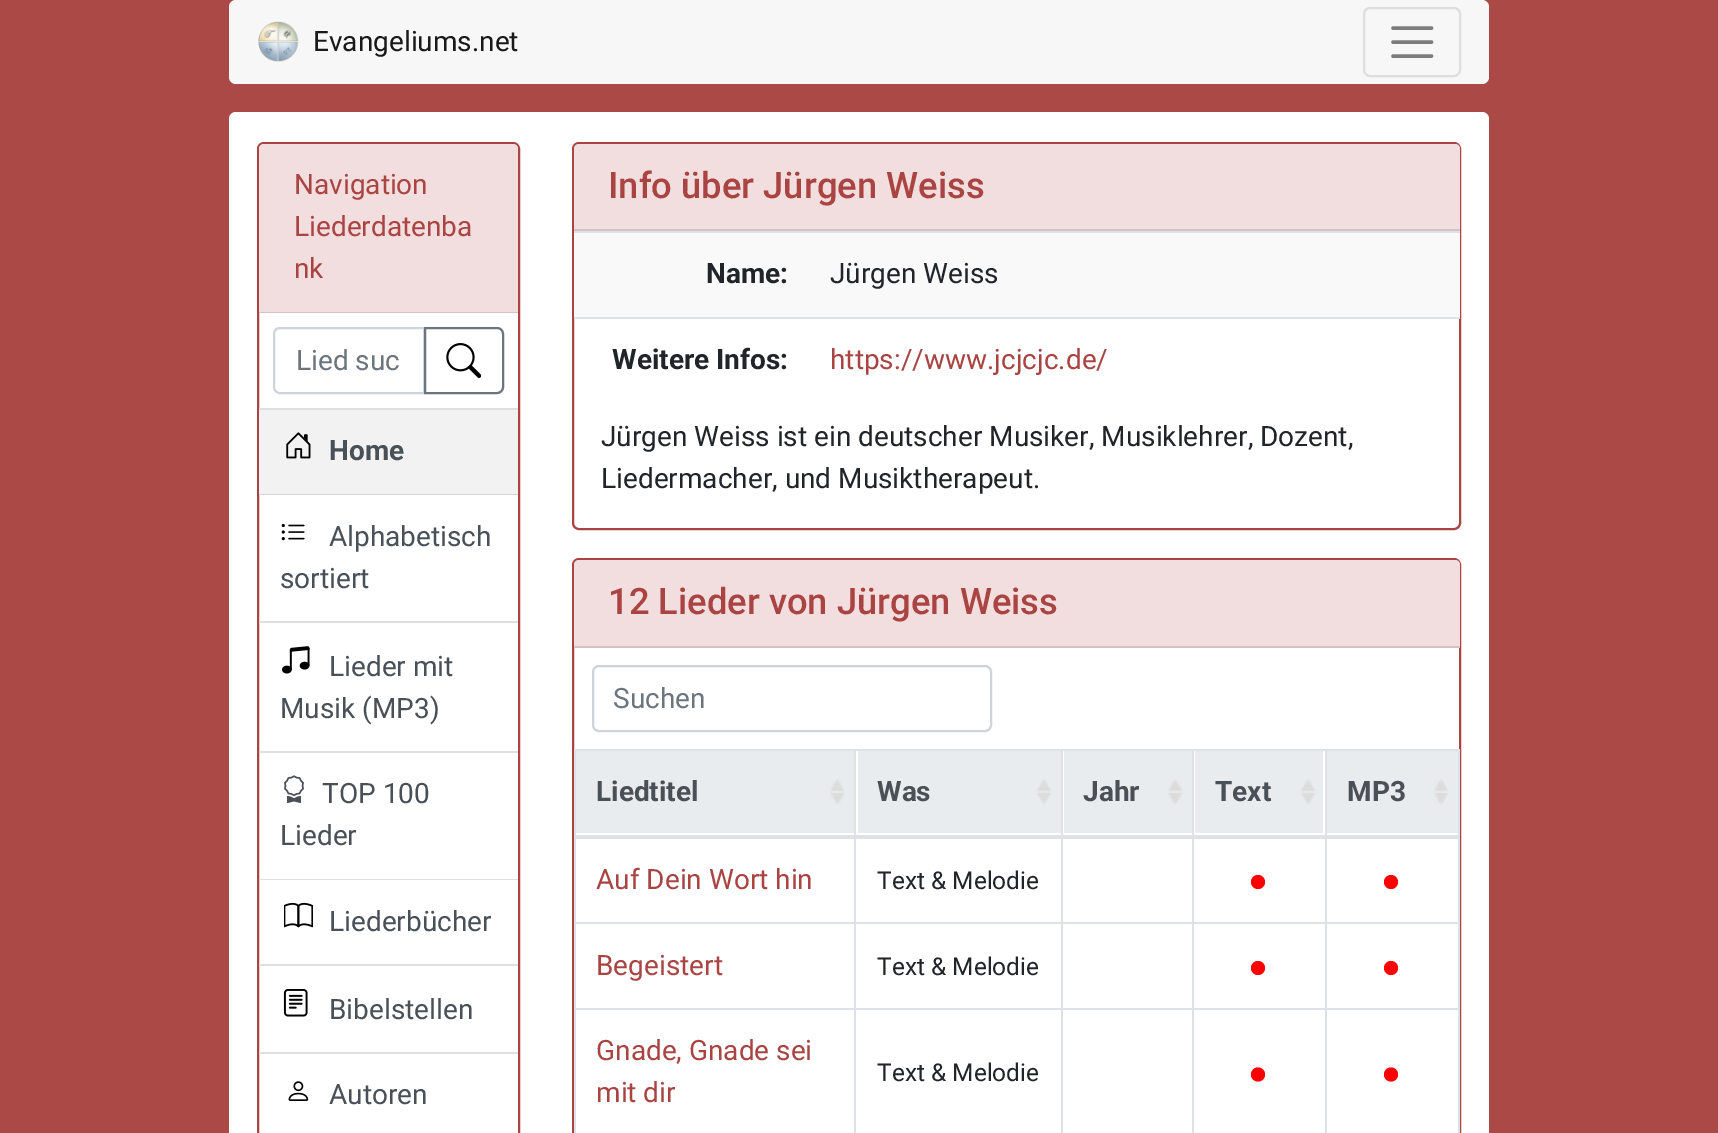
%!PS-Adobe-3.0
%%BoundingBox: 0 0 1718 1133
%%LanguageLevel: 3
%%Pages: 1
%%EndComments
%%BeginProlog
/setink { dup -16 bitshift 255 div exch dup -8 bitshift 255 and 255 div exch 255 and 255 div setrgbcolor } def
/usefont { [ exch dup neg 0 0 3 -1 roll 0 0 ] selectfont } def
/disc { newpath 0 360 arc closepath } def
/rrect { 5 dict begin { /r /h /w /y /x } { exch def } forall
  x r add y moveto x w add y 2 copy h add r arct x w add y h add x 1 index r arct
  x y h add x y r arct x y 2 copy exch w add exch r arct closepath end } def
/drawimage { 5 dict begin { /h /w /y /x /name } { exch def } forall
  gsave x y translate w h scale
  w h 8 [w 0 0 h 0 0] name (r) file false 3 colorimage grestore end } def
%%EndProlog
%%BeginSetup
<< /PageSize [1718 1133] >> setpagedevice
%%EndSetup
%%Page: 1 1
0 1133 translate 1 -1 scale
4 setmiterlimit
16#AB4947 setink
0 0 1718 1133 rectfill
16#F7F7F7 setink
229 0 1260 84 7 rrect fill
(img1.raw) 258 21 41 41 drawimage
/Roboto-Regular 28 usefont
16#191919 setink
313 51 moveto (Evangeliums.net) show
16#DEDEDE setink
2 setlinewidth
1364 8 96 68 6 rrect stroke
16#7C7C7C setink
3.5 setlinewidth
1 setlinecap
1393 28 moveto 1431.5 28 lineto 1393 42 moveto 1431.5 42 lineto 1393 56 moveto 1431.5 56 lineto stroke
16#FFFFFF setink
229 112 1260 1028 7 rrect fill
16#A94442 setink
2 setlinewidth
0 setlinecap
258 143 261 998 6 rrect stroke
16#F2DEDE setink
264 144 moveto 513 144 lineto 516 144 518 146 518 149 curveto 518 313 lineto 259 313 lineto 259 149 lineto 259 146 261 144 264 144 curveto closepath fill
16#D5C3C3 setink
259 312 259 1 rectfill
16#A94442 setink
[
    [(Navigation) 294 194]
    [(Liederdatenba) 294 236]
    [(nk) 294 278]
] { aload pop moveto show } forall
16#DFDFDF setink
259 408 259 2 rectfill
16#CED4DA setink
280 328 moveto 424 328 lineto 424 393 lineto 280 393 lineto 276.5 393 274 390.5 274 387 curveto 274 334 lineto 274 330.5 276.5 328 280 328 curveto closepath stroke
16#6C757D setink
296 370 moveto (Lied suc) show
425 328 moveto 497 328 lineto 500.5 328 503 330.5 503 334 curveto 503 387 lineto 503 390.5 500.5 393 497 393 curveto 425 393 lineto closepath stroke
(img2.raw) 446 343 35 35 drawimage
16#F2F2F2 setink
259 410 259 84 rectfill
16#D5D5D5 setink
259 494 259 1 rectfill
(img3.raw) 286 432 25 27 drawimage
/Roboto-Bold 28 usefont
16#495057 setink
329 460 moveto (Home) show
16#DFDFDF setink
259 621 259 2 rectfill
(img4.raw) 281 523 24 18 drawimage
/Roboto-Regular 28 usefont
16#495057 setink
329 546 moveto (Alphabetisch) show
280 588 moveto (sortiert) show
16#DFDFDF setink
259 751 259 2 rectfill
(img5.raw) 282 646 28 28 drawimage
16#495057 setink
329 676 moveto (Lieder mit) show
280 718 moveto (Musik \(MP3\)) show
16#DFDFDF setink
259 879 259 1 rectfill
(img6.raw) 284 775 20 28 drawimage
16#495057 setink
322 803 moveto (TOP 100) show
280 845 moveto (Lieder) show
16#DFDFDF setink
259 964 259 2 rectfill
(img7.raw) 284 902 29 26 drawimage
16#495057 setink
329 931 moveto (Liederbücher) show
16#DFDFDF setink
259 1052 259 2 rectfill
(img8.raw) 283 989 25 28 drawimage
16#495057 setink
329 1019 moveto (Bibelstellen) show
(img9.raw) 288 1081 21 20 drawimage
329 1104 moveto (Autoren) show
16#A94442 setink
573 143 887 386 6 rrect stroke
16#F2DEDE setink
579 144 moveto 1455 144 lineto 1458 144 1460 146 1460 149 curveto 1460 231 lineto 574 231 lineto 574 149 lineto 574 146 576 144 579 144 curveto closepath fill
16#D4C2C2 setink
574 229 886 2 rectfill
/Roboto-Medium 36.4 usefont
16#A94442 setink
608 198 moveto (Info über Jürgen Weiss) show
16#F9F9F9 setink
574 233 886 84 rectfill
/Roboto-Bold 28 usefont
16#212529 setink
706 283 moveto (Name:) show
16#DEE2E6 setink
574 231 886 2 rectfill
/Roboto-Regular 28 usefont
16#212529 setink
830 283 moveto (Jürgen Weiss) show
/Roboto-Bold 28 usefont
612 369 moveto (Weitere Infos:) show
16#DEE2E6 setink
574 317 886 2 rectfill
/Roboto-Regular 28 usefont
16#A94442 setink
830 369 moveto (https://www.jcjcjc.de/) show
16#212529 setink
601 446 moveto (Jürgen Weiss ist ein deutscher Musiker, Musiklehrer, Dozent,) show
601 488 moveto (Liedermacher, und Musiktherapeut.) show
16#A94442 setink
573 559 887 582 6 rrect stroke
16#F2DEDE setink
579 560 moveto 1455 560 lineto 1458 560 1460 562 1460 565 curveto 1460 648 lineto 574 648 lineto 574 565 lineto 574 562 576 560 579 560 curveto closepath fill
16#D4C2C2 setink
574 646 886 2 rectfill
/Roboto-Medium 36.4 usefont
16#A94442 setink
608 614 moveto (12 Lieder von Jürgen Weiss) show
16#CED4DA setink
593 666 398 65 6 rrect stroke
/Roboto-Regular 28 usefont
16#6C757D setink
613 708 moveto (Suchen) show
[
    [574 749 886 2 16#DEE2E6]
    [1458 749 2 384 16#DEE2E6]
    [574 749 2 384 16#DEE2E6]
    [576 751 278 82 16#E9ECEF]
] { aload pop setink rectfill } forall
(img10.raw) 830 779 15 26 drawimage
/Roboto-Bold 28 usefont
16#495057 setink
596 801 moveto (Liedtitel) show
16#E9ECEF setink
858 751 203 82 rectfill
(img11.raw) 1036 779 16 26 drawimage
16#495057 setink
877 801 moveto (Was) show
16#E9ECEF setink
1064 751 128 82 rectfill
(img12.raw) 1168 779 15 26 drawimage
16#495057 setink
1083 801 moveto (Jahr) show
16#E9ECEF setink
1195 751 128 82 rectfill
(img13.raw) 1301 779 15 26 drawimage
16#495057 setink
1215 801 moveto (Text) show
[
    [1327 751 131 82 16#E9ECEF]
    [1325 922 135 2 16#DEE2E6]
    [1325 1008 135 2 16#DEE2E6]
    [1325 1008 2 125 16#DEE2E6]
    [1192 1008 135 2 16#DEE2E6]
    [1325 922 2 88 16#DEE2E6]
    [1192 922 135 2 16#DEE2E6]
    [1192 1008 2 125 16#DEE2E6]
    [1061 1008 133 2 16#DEE2E6]
    [1192 922 2 88 16#DEE2E6]
    [1061 922 133 2 16#DEE2E6]
    [1061 1008 2 125 16#DEE2E6]
    [854 1008 208 2 16#DEE2E6]
    [1061 922 2 88 16#DEE2E6]
    [854 922 208 2 16#DEE2E6]
    [854 1008 2 125 16#DEE2E6]
    [574 1008 282 2 16#DEE2E6]
    [854 922 2 88 16#DEE2E6]
    [574 922 282 2 16#DEE2E6]
    [854 749 2 175 16#DEE2E6]
    [1061 749 2 175 16#DEE2E6]
    [1192 749 2 175 16#DEE2E6]
    [1325 749 2 175 16#DEE2E6]
    [574 835 886 4 16#DEE2E6]
] { aload pop setink rectfill } forall
(img12.raw) 1434 779 15 26 drawimage
16#495057 setink
1347 801 moveto (MP3) show
/Roboto-Regular 28 usefont
16#A94442 setink
596 889 moveto (Auf Dein Wort hin) show
/Roboto-Regular 24.5 usefont
16#212529 setink
877 889 moveto (Text & Melodie) show
16#FF0000 setink
1258 882 7 disc fill
1391 882 7 disc fill
/Roboto-Regular 28 usefont
16#A94442 setink
596 975 moveto (Begeistert) show
/Roboto-Regular 24.5 usefont
16#212529 setink
877 975 moveto (Text & Melodie) show
16#FF0000 setink
1258 968 7 disc fill
1391 968 7 disc fill
/Roboto-Regular 28 usefont
16#A94442 setink
596 1060 moveto (Gnade, Gnade sei) show
596 1102 moveto (mit dir) show
/Roboto-Regular 24.5 usefont
16#212529 setink
877 1081 moveto (Text & Melodie) show
16#FF0000 setink
1258 1074.5 7 disc fill
1391 1074.5 7 disc fill
showpage
%%EOF
